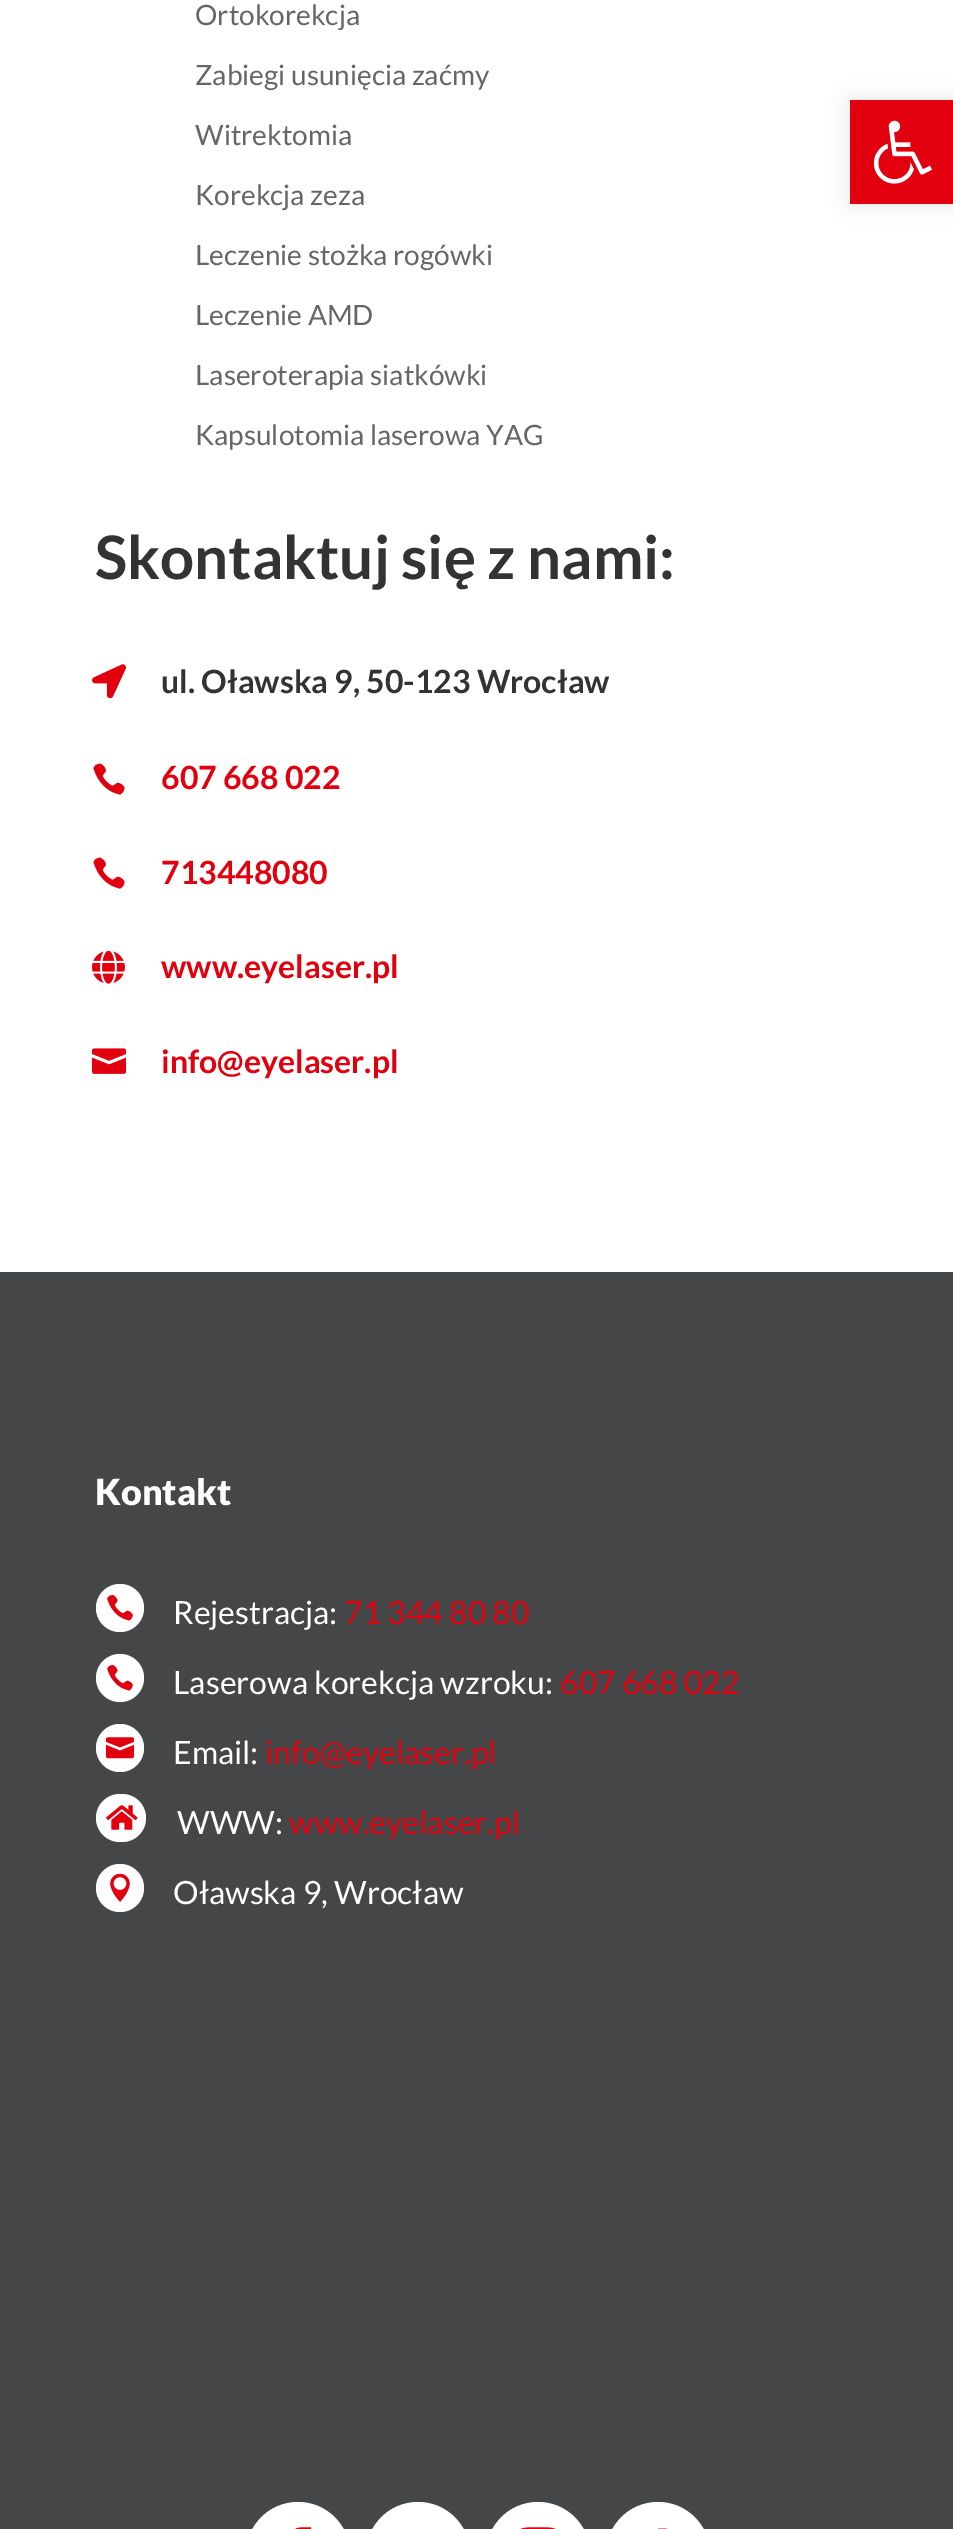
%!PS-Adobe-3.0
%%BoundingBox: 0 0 953 2529
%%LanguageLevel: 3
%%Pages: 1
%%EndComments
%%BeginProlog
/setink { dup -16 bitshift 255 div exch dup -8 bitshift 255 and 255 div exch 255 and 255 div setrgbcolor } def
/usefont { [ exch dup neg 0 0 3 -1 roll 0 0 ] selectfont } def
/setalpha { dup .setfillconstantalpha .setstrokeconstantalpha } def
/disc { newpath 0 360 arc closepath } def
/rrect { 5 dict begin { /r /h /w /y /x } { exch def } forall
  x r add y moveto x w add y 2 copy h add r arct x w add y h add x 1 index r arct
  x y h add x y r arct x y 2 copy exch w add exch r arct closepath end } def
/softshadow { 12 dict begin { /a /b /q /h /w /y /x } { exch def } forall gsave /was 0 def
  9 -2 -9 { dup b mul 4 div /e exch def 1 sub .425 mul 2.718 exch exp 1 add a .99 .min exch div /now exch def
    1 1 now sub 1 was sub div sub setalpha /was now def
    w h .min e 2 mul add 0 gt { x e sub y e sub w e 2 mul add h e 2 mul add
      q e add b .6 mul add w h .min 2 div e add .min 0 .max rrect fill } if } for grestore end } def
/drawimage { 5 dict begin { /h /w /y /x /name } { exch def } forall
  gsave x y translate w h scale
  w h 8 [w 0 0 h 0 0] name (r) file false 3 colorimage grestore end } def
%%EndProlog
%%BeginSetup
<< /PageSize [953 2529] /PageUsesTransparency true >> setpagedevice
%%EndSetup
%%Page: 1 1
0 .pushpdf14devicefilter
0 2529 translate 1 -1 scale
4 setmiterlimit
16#FFFFFF setink
0 0 953 2529 rectfill
/Lato-Regular 28 usefont
16#666666 setink
[
    [(Ortokorekcja) 195 25]
    [(Zabiegi usunięcia zaćmy) 195 85]
    [(Witrektomia) 195 145]
    [(Korekcja zeza) 195 205]
    [(Leczenie stożka rogówki) 195 265]
    [(Leczenie AMD) 195 325]
    [(Laseroterapia siatkówki) 195 385]
    [(Kapsulotomia laserowa YAG) 195 445]
] { aload pop moveto show } forall
/Lato-Bold 60 usefont
16#333333 setink
95 579 moveto (Skontaktuj się z nami:) show
(img1.raw) 92 664 35 35 drawimage
/Lato-Bold 32 usefont
161 693 moveto (ul. Oławska 9, 50-123 Wrocław) show
(img2.raw) 93 763 32 32 drawimage
16#E2000F setink
161 789 moveto (607 668 022) show
(img2.raw) 93 857 32 32 drawimage
161 884 moveto (713448080) show
(img3.raw) 92 950 33 34 drawimage
161 978 moveto (www.eyelaser.pl) show
(img4.raw) 92 1048 34 26 drawimage
161 1073 moveto (info@eyelaser.pl) show
16#444648 setink
0 1272 953 1257 rectfill
/Lato-Black 36 usefont
16#FFFFFF setink
95 1505 moveto (Kontakt) show
120 1608 24 disc fill
(img5.raw) 107 1594 26 27 drawimage
/Lato-Regular 32 usefont
173 1624 moveto (Rejestracja:) show
16#E2000F setink
344 1624 moveto (71 344 80 80) show
16#FFFFFF setink
120 1678 24 disc fill
(img5.raw) 107 1664 26 27 drawimage
173 1694 moveto (Laserowa korekcja wzroku:) show
16#E2000F setink
560 1694 moveto (607 668 022) show
16#FFFFFF setink
120 1748 24 disc fill
(img6.raw) 106 1737 28 22 drawimage
173 1764 moveto (Email:) show
16#E2000F setink
265 1764 moveto (info@eyelaser.pl) show
16#FFFFFF setink
96 1794 50 48 24 rrect fill
(img7.raw) 106 1805 32 25 drawimage
177 1834 moveto (WWW:) show
16#E2000F setink
289 1834 moveto (www.eyelaser.pl) show
16#FFFFFF setink
120 1888 24 disc fill
(img8.raw) 110 1873 20 29 drawimage
173 1904 moveto (Oławska 9, Wrocław) show
246 2502 104 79 52 rrect fill
(img9.raw) 295 2527 17 2 drawimage
366 2502 104 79 52 rrect fill
486 2502 104 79 52 rrect fill
(img10.raw) 520 2527 36 2 drawimage
606 2502 104 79 52 rrect fill
(img11.raw) 658 2528 9 1 drawimage
16#000000 setink
850 100 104 104 0 10 0.1 softshadow
16#E2000F setink
850 100 103 104 rectfill
(img12.raw) 873 120 59 64 drawimage
.poppdf14devicefilter showpage
%%EOF
